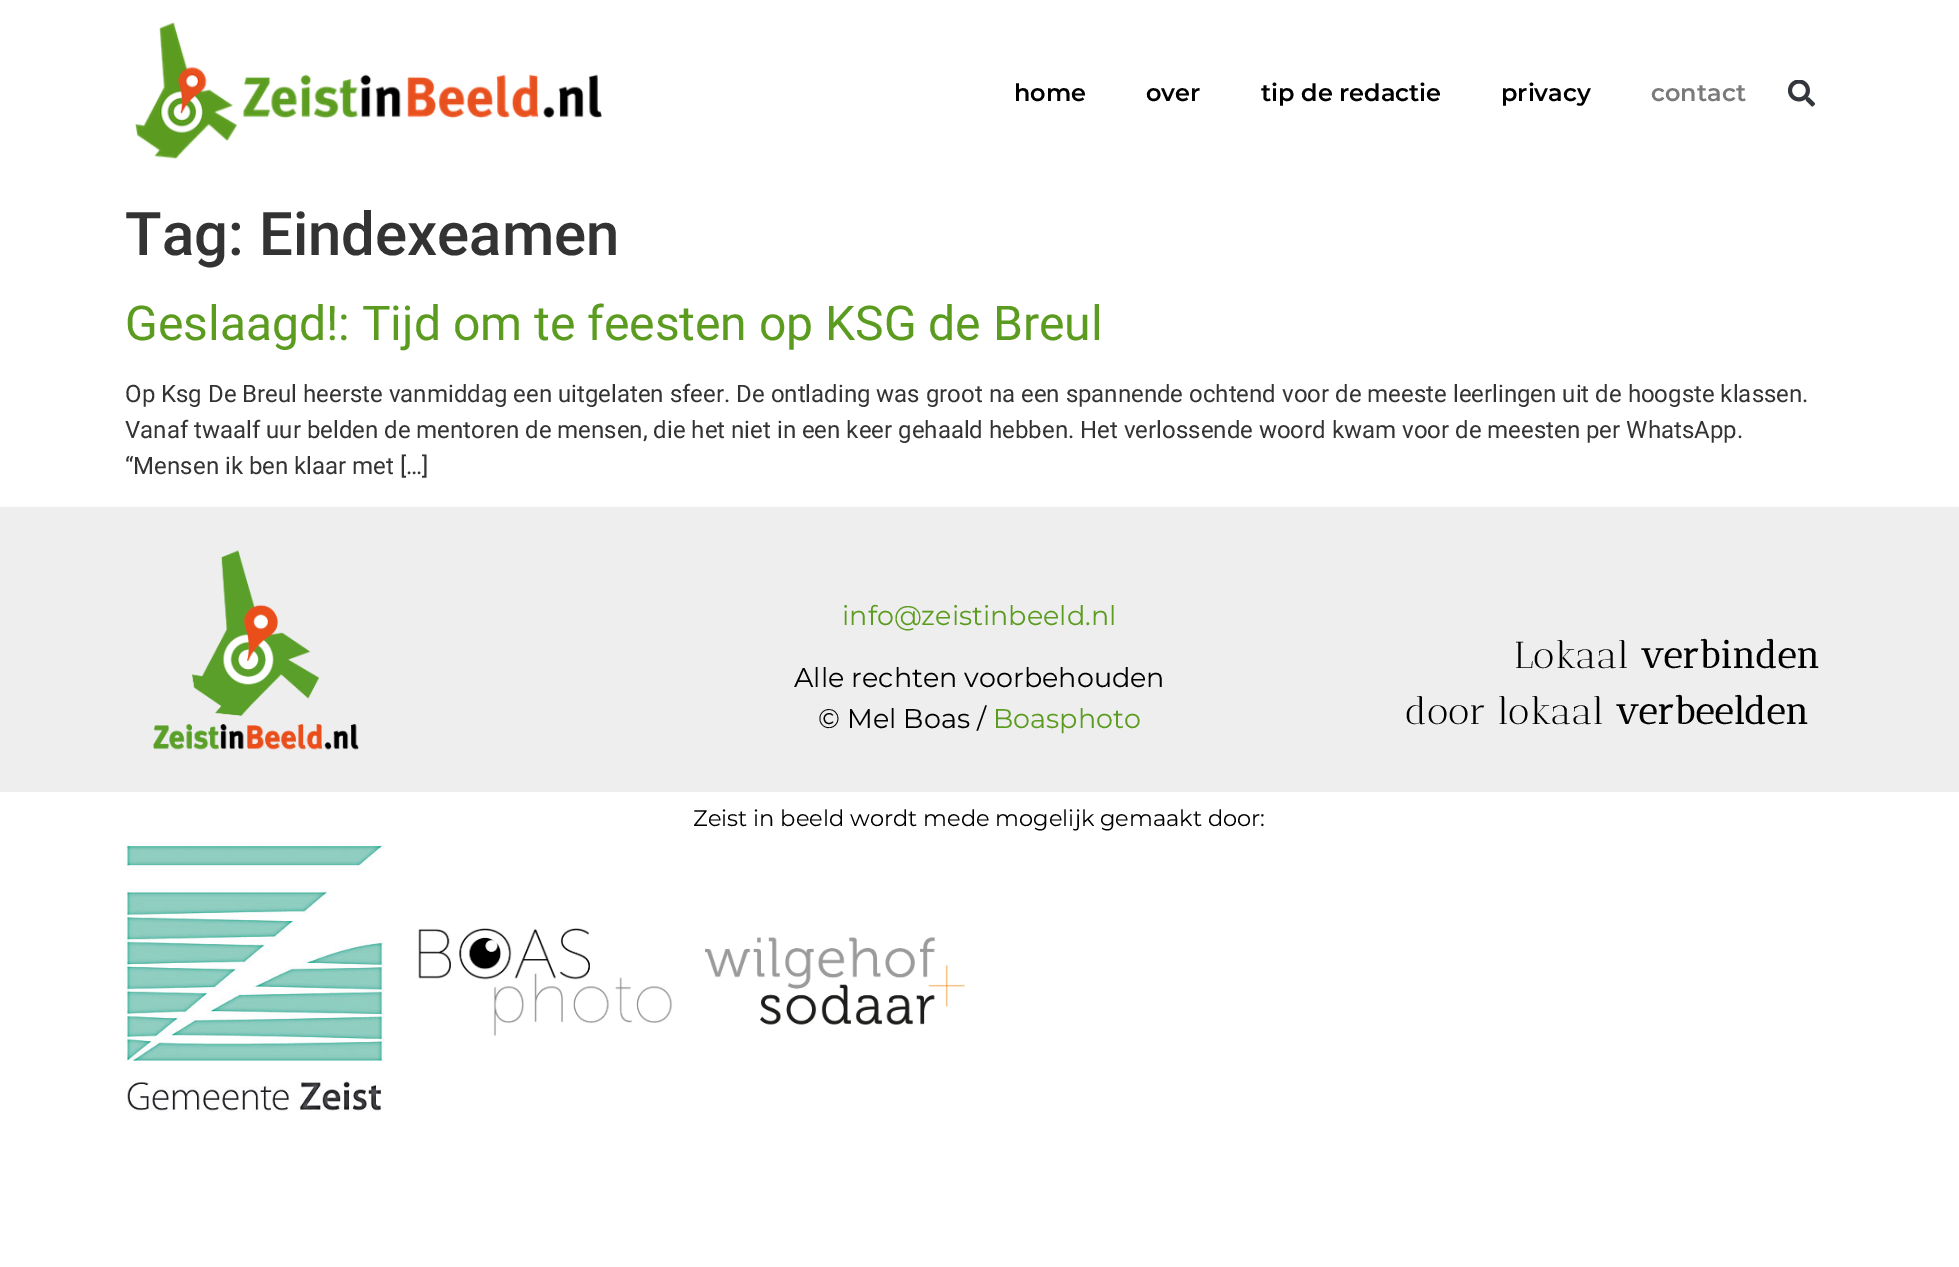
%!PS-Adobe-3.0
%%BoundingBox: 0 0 1959 1267
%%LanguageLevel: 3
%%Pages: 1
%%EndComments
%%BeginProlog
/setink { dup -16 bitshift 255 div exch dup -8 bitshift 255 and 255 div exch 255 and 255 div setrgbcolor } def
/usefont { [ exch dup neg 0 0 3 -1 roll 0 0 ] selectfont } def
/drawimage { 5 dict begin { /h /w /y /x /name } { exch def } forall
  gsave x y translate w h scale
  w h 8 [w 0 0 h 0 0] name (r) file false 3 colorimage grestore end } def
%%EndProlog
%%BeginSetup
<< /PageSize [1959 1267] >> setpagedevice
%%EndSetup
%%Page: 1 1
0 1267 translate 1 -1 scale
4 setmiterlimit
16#FFFFFF setink
0 0 1959 1267 rectfill
(img1.raw) 135 22 467 137 drawimage
/Montserrat-SemiBold 24 usefont
16#000000 setink
[
    [(home) 1014 101]
    [(over) 1146 101]
    [(tip de redactie) 1261 101]
    [(privacy) 1501 101]
] { aload pop moveto show } forall
16#7A7A7A setink
1651 101 moveto (contact) show
(img2.raw) 1788 80 27 27 drawimage
/Roboto-Medium 60 usefont
16#333333 setink
125 255 moveto (Tag: Eindexeamen) show
/Roboto-Regular 48 usefont
16#5B9C20 setink
125 340 moveto (Geslaagd!: Tijd om te feesten op KSG de Breul) show
/Roboto-Regular 24 usefont
16#333333 setink
[
    [(Op Ksg De Breul heerste vanmiddag een uitgelaten sfeer. De ontlading was groot na een spannende ochtend voor de meeste leerlingen uit de hoogste klassen.) 125 402]
    [(Vanaf twaalf uur belden de mentoren de mensen, die het niet in een keer gehaald hebben. Het verlossende woord kwam voor de meesten per WhatsApp.) 125 438]
    [(“Mensen ik ben klaar met […]) 125 474]
] { aload pop moveto show } forall
16#EEEEEE setink
0 507 1959 285 rectfill
(img3.raw) 153 550 206 200 drawimage
/Montserrat-Regular 27 usefont
16#5B9C20 setink
842 625 moveto (info@zeistinbeeld.nl) show
16#000000 setink
794 687 moveto (Alle rechten voorbehouden) show
818 728 moveto (© Mel Boas /) show
16#5B9C20 setink
993 728 moveto (Boasphoto) show
/AnticDidone-Regular 37.5 usefont
16#000000 setink
1514 668 moveto (Lokaal) show
/AnticDidone-Bold 37.5 usefont
1640 668 moveto (verbinden) show
/AnticDidone-Regular 37.5 usefont
1405 724 moveto (door lokaal) show
/AnticDidone-Bold 37.5 usefont
1615 724 moveto (verbeelden) show
/Montserrat-Regular 22.5 usefont
693 826 moveto (Zeist in beeld wordt mede mogelijk gemaakt door:) show
(img4.raw) 124 844 260 268 drawimage
(img5.raw) 418 928 255 108 drawimage
(img6.raw) 705 937 260 88 drawimage
showpage
%%EOF
